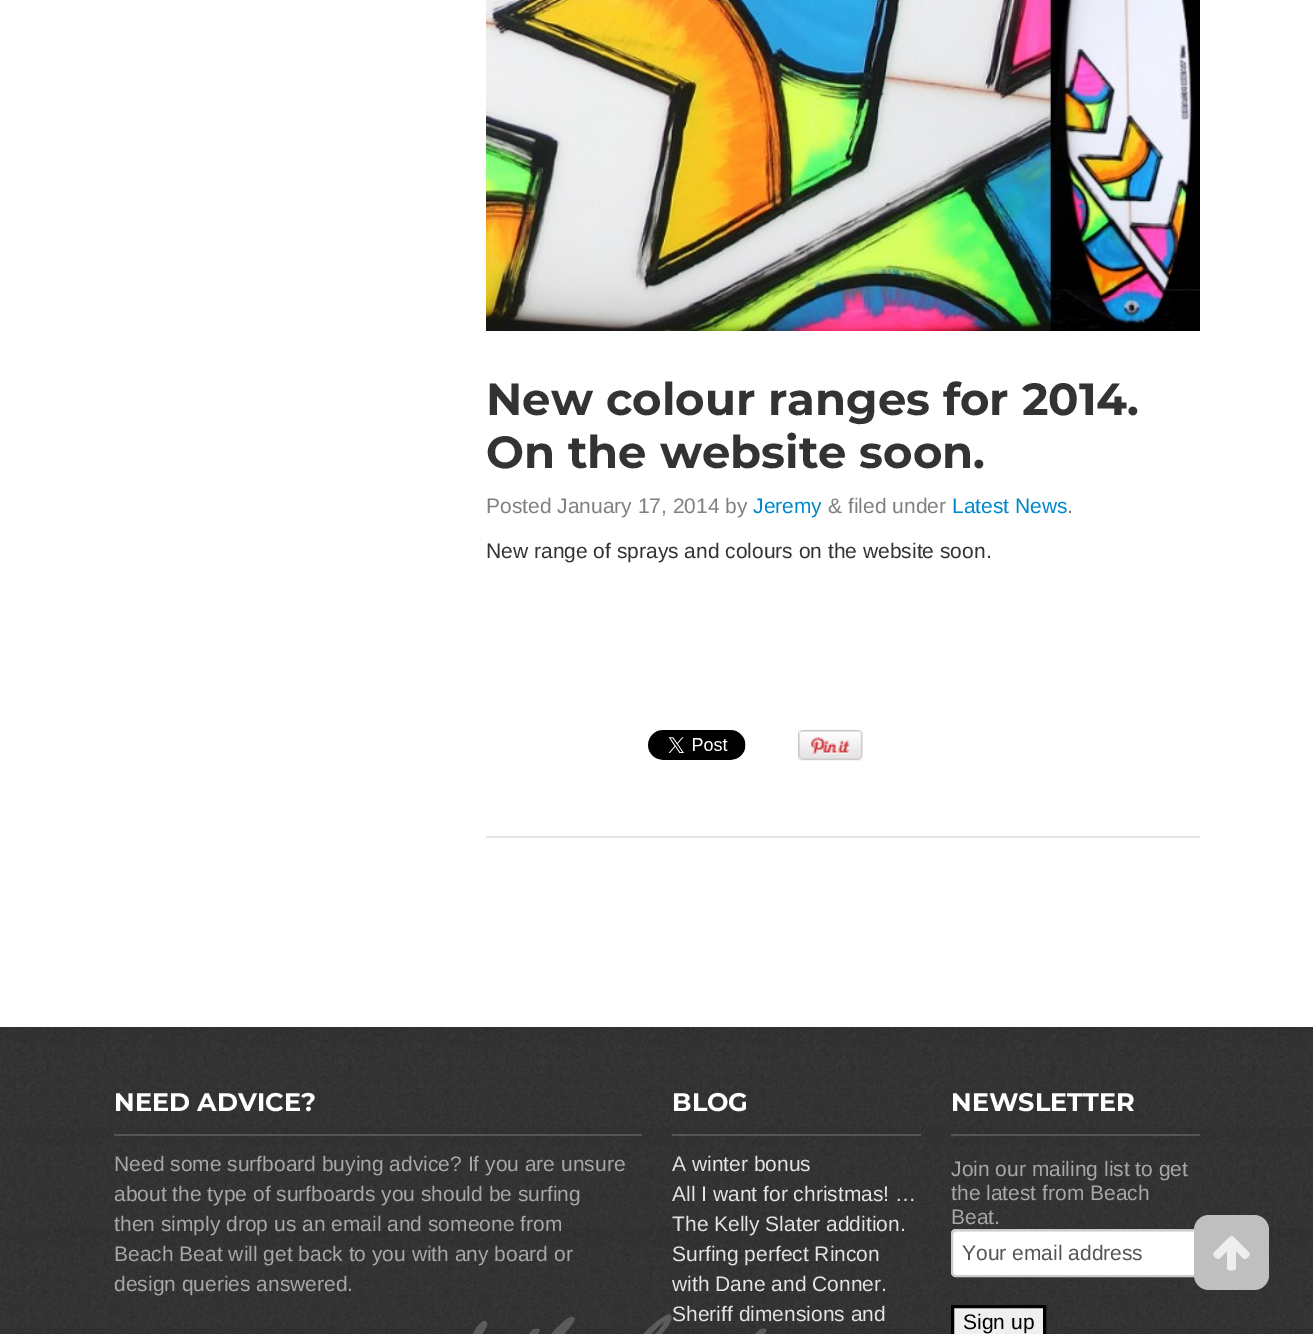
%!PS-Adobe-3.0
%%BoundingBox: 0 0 1313 1334
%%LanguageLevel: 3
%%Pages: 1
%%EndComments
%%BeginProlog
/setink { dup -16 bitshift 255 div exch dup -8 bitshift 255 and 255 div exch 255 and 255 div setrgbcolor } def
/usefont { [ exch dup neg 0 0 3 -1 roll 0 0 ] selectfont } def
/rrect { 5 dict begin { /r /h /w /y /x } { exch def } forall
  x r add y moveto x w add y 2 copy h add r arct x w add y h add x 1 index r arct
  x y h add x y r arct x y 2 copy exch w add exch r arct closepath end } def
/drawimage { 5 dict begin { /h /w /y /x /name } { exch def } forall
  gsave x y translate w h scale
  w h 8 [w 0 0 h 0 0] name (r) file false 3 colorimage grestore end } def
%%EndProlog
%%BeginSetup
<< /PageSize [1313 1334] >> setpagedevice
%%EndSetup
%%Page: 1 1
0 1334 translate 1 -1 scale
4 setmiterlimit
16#FFFFFF setink
0 0 1313 1334 rectfill
(img1.raw) 486 0 714 331 drawimage
/Montserrat-Bold 45 usefont
16#333333 setink
486 415 moveto (New colour ranges for 2014.) show
486 468 moveto (On the website soon.) show
/LiberationSans-Regular 21 usefont
16#808080 setink
486 513 moveto (Posted January 17, 2014 by) show
16#0088CC setink
753 513 moveto (Jeremy) show
16#808080 setink
828 513 moveto (& filed under) show
16#0088CC setink
952 513 moveto (Latest News) show
16#808080 setink
1067 513 moveto (.) show
16#333333 setink
486 558 moveto (New range of sprays and colours on the website soon.) show
(img2.raw) 648 730 98 30 drawimage
(img3.raw) 798 730 65 31 drawimage
16#E5E5E5 setink
486 836 714 2 rectfill
(img4.raw) 0 1027 1313 307 drawimage
(img5.raw) 473 1314 294 20 drawimage
16#555555 setink
114 1134 528 2 rectfill
/Montserrat-Bold 25.5 usefont
16#FFFFFF setink
114 1111 moveto (NEED ADVICE?) show
/LiberationSans-Regular 21 usefont
16#A7A7A7 setink
[
    [(Need some surfboard buying advice? If you are unsure) 114 1171]
    [(about the type of surfboards you should be surfing) 114 1201]
    [(then simply drop us an email and someone from) 114 1231]
    [(Beach Beat will get back to you with any board or) 114 1261]
    [(design queries answered.) 114 1291]
] { aload pop moveto show } forall
16#555555 setink
672 1134 249 2 rectfill
/Montserrat-Bold 25.5 usefont
16#FFFFFF setink
672 1111 moveto (BLOG) show
/LiberationSans-Regular 21 usefont
16#E3E3E3 setink
[
    [(A winter bonus) 672 1171]
    [(All I want for christmas! …) 672 1201]
    [(The Kelly Slater addition.) 672 1231]
    [(Surfing perfect Rincon) 672 1261]
    [(with Dane and Conner.) 672 1291]
    [(Sheriff dimensions and) 672 1321]
] { aload pop moveto show } forall
16#555555 setink
951 1134 249 2 rectfill
/Montserrat-Bold 25.5 usefont
16#FFFFFF setink
951 1111 moveto (NEWSLETTER) show
/LiberationSans-Regular 21 usefont
16#A7A7A7 setink
[
    [(Join our mailing list to get) 951 1176]
    [(the latest from Beach) 951 1200]
    [(Beat.) 951 1224]
] { aload pop moveto show } forall
16#FFFFFF setink
951 1229 249 48 5 rrect fill
16#ECECEC setink
956 1232 moveto 1196 1232 lineto 1197 1232 1198 1233 1198 1234 curveto 1198 1274 lineto 1199 1274 1199 1273 1199 1272 curveto 1199 1233 lineto 1199 1231 1198 1230 1196 1230 curveto 956 1230 lineto 954 1230 953 1231 953 1233 curveto closepath fill
16#CCCCCC setink
2 setlinewidth
952 1230 247 46 4 rrect stroke
16#555555 setink
962 1260 moveto (Your email address) show
16#EFEFEF setink
952.5 1306.5 moveto 1044.5 1306.5 lineto 1044.5 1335.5 lineto 952.5 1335.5 lineto closepath gsave fill grestore
16#000000 setink
3 setlinewidth
stroke
963 1329 moveto (Sign up) show
16#BFBFBF setink
1194 1215 75 75 15 rrect fill
(img6.raw) 1213 1236 37 35 drawimage
showpage
%%EOF
